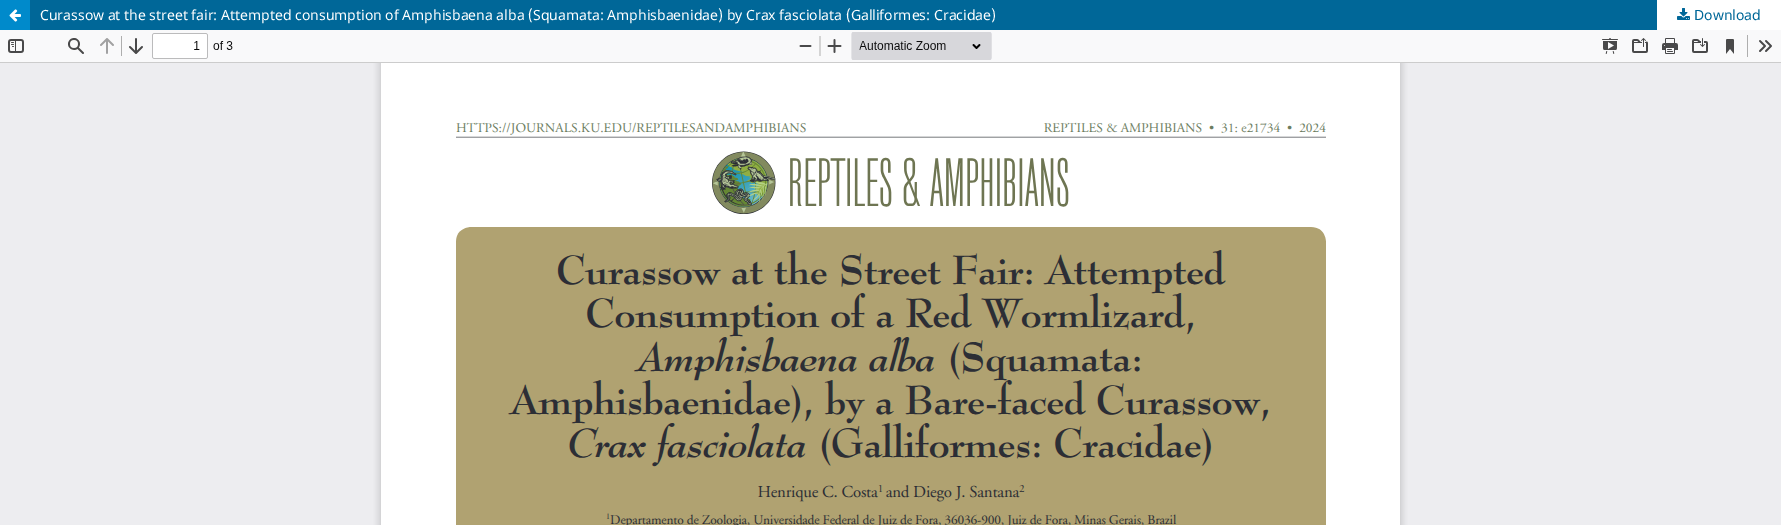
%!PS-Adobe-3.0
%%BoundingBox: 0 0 1781 525
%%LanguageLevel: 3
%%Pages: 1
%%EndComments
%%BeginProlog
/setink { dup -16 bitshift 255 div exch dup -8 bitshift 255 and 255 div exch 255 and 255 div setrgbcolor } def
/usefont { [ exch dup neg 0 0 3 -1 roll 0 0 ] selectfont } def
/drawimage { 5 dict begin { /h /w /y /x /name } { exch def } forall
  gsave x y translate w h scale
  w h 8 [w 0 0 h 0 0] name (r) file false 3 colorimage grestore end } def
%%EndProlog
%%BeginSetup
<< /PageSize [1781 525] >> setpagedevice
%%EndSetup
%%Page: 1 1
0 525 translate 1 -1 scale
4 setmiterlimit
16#FFFFFF setink
0 0 1781 525 rectfill
16#006798 setink
30 0 1627 30 rectfill
16#008ACB setink
0 0 30 30 rectfill
(img1.raw) 9 9 12 13 drawimage
/NotoSans-Regular 14 usefont
16#FFFFFF setink
40 20 moveto (Curassow at the street fair: Attempted consumption of Amphisbaena alba \(Squamata: Amphisbaenidae\) by Crax fasciolata \(Galliformes: Cracidae\)) show
(img2.raw) 1677 8 13 12 drawimage
16#006798 setink
1694 20 moveto (Download) show
(img3.raw) 0 30 1781 495 drawimage
showpage
%%EOF
